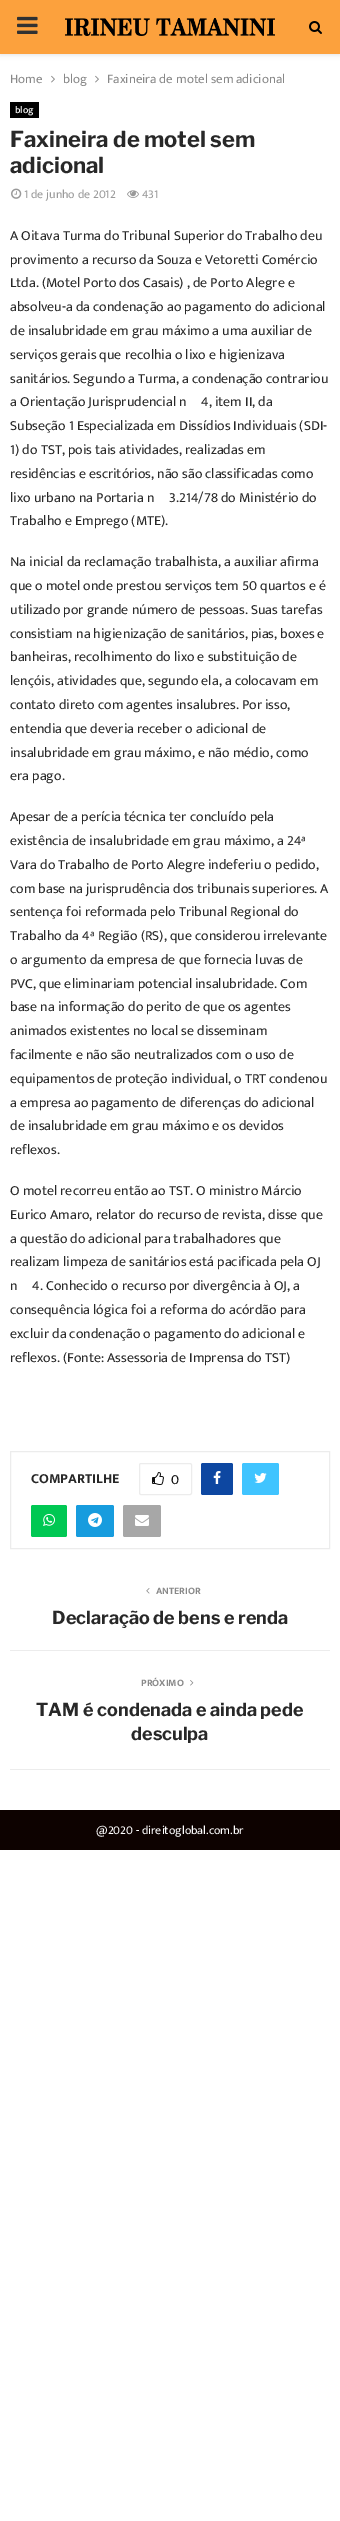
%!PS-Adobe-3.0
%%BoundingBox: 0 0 340 2521
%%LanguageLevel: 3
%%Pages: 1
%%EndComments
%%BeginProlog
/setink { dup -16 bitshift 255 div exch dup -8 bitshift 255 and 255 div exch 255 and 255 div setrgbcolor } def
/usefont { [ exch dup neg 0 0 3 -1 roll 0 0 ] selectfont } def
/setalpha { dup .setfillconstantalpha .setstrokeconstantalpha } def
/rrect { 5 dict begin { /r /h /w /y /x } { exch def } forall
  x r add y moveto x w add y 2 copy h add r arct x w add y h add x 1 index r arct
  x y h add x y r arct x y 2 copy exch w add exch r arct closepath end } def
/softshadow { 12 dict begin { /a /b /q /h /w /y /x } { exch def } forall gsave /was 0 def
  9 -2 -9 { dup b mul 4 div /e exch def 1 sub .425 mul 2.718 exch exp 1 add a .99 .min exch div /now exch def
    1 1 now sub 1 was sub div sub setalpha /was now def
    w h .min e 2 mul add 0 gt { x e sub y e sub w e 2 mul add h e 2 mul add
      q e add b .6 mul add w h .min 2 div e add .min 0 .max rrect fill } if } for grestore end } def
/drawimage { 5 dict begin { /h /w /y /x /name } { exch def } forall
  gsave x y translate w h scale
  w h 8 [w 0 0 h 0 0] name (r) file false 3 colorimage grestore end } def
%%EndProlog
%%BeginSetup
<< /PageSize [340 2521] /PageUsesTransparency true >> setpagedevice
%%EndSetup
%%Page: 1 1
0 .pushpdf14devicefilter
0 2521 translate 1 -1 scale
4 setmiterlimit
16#FFFFFF setink
0 0 340 2521 rectfill
16#BEBEBE setink
0 1 340 54 0 2.5 0.46 softshadow
16#FCA13D setink
0 0 340 54 rectfill
(img1.raw) 17 16 21 18 drawimage
(img2.raw) 65 18 210 18 drawimage
(img3.raw) 309 21 13 13 drawimage
/MuktaVaani-Regular 13 usefont
16#888888 setink
10 83 moveto (Home) show
(img4.raw) 51 75 4 8 drawimage
63 83 moveto (blog) show
(img4.raw) 95 75 4 8 drawimage
107 83 moveto (Faxineira de motel sem adicional) show
16#000000 setink
10 102 29 16 rectfill
/MuktaVaani-Medium 10 usefont
16#FFFFFF setink
15 113 moveto (blog) show
/LibreFranklin-Bold 22 usefont
16#282828 setink
10 147 moveto (Faxineira de motel sem) show
10 173 moveto (adicional) show
(img5.raw) 11 188 11 11 drawimage
/MuktaVaani-Regular 12 usefont
16#999999 setink
24 198 moveto (1 de junho de 2012) show
(img6.raw) 127 190 12 8 drawimage
142 198 moveto (431) show
/MuktaVaani-Regular 14 usefont
16#282828 setink
[
    [(A Oitava Turma do Tribunal Superior do Trabalho deu) 10 240]
    [(provimento a recurso da Souza e Vetoretti Comércio) 10 264]
    [(Ltda. \(Motel Porto dos Casais\) , de Porto Alegre e) 10 287]
    [(absolveu-a da condenação ao pagamento do adicional) 10 311]
    [(de insalubridade em grau máximo a uma auxiliar de) 10 335]
    [(serviços gerais que recolhia o lixo e higienizava) 10 359]
    [(sanitários. Segundo a Turma, a condenação contrariou) 10 383]
    [(a Orientação Jurisprudencial nº 4, item II, da) 10 406]
    [(Subseção 1 Especializada em Dissídios Individuais \(SDI-) 10 430]
    [(1\) do TST, pois tais atividades, realizadas em) 10 454]
    [(residências e escritórios, não são classificadas como) 10 478]
    [(lixo urbano na Portaria nº 3.214/78 do Ministério do) 10 502]
    [(Trabalho e Emprego \(MTE\).) 10 525]
    [(Na inicial da reclamação trabalhista, a auxiliar afirma) 10 566]
    [(que o motel onde prestou serviços tem 50 quartos e é) 10 590]
    [(utilizado por grande número de pessoas. Suas tarefas) 10 614]
    [(consistiam na higienização de sanitários, pias, boxes e) 10 638]
    [(banheiras, recolhimento do lixo e substituição de) 10 661]
    [(lençóis, atividades que, segundo ela, a colocavam em) 10 685]
    [(contato direto com agentes insalubres. Por isso,) 10 709]
    [(entendia que deveria receber o adicional de) 10 733]
    [(insalubridade em grau máximo, e não médio, como) 10 757]
    [(era pago.) 10 780]
    [(Apesar de a perícia técnica ter concluído pela) 10 821]
    [(existência de insalubridade em grau máximo, a 24ª) 10 845]
    [(Vara do Trabalho de Porto Alegre indeferiu o pedido,) 10 869]
    [(com base na jurisprudência dos tribunais superiores. A) 10 893]
    [(sentença foi reformada pelo Tribunal Regional do) 10 916]
    [(Trabalho da 4ª Região \(RS\), que considerou irrelevante) 10 940]
    [(o argumento da empresa de que fornecia luvas de) 10 964]
    [(PVC, que eliminariam potencial insalubridade. Com) 10 988]
    [(base na informação do perito de que os agentes) 10 1011]
    [(animados existentes no local se disseminam) 10 1035]
    [(facilmente e não são neutralizados com o uso de) 10 1059]
    [(equipamentos de proteção individual, o TRT condenou) 10 1083]
    [(a empresa ao pagamento de diferenças do adicional) 10 1107]
    [(de insalubridade em grau máximo e os devidos) 10 1130]
    [(reflexos.) 10 1154]
    [(O motel recorreu então ao TST. O ministro Márcio) 10 1195]
    [(Eurico Amaro, relator do recurso de revista, disse que) 10 1219]
    [(a questão do adicional para trabalhadores que) 10 1243]
    [(realizam limpeza de sanitários está pacificada pela OJ) 10 1266]
    [(nº 4. Conhecido o recurso por divergência à OJ, a) 10 1290]
    [(consequência lógica foi a reforma do acórdão para) 10 1314]
    [(excluir da condenação o pagamento do adicional e) 10 1338]
    [(reflexos. \(Fonte: Assessoria de Imprensa do TST\)) 10 1362]
] { aload pop moveto show } forall
16#ECECEC setink
10.5 1451.5 319 97 rectstroke
/MuktaVaani-Bold 14 usefont
16#282828 setink
31 1483 moveto (COMPARTILHE) show
16#ECECEC setink
139.5 1463.5 52 31 1.5 rrect stroke
(img7.raw) 152 1472 12 13 drawimage
/MuktaVaani-Regular 14 usefont
16#111111 setink
171 1484 moveto (0) show
16#0D47A1 setink
201 1463 32 32 2 rrect fill
(img8.raw) 213 1471 8 13 drawimage
16#40C4FF setink
242 1463 37 32 2 rrect fill
(img9.raw) 254 1473 13 10 drawimage
16#00C853 setink
31 1505 36 32 2 rrect fill
(img10.raw) 43 1514 12 12 drawimage
16#179CDE setink
76 1505 38 32 2 rrect fill
(img11.raw) 88 1513 14 14 drawimage
16#A7A7A7 setink
123 1505 38 32 2 rrect fill
(img12.raw) 135 1515 14 11 drawimage
16#ECECEC setink
10 1769 320 1 rectfill
(img13.raw) 146 1588 4 6 drawimage
/MuktaVaani-Bold 10 usefont
16#888888 setink
156 1594 moveto (ANTERIOR) show
/LibreFranklin-Bold 18 usefont
16#282828 setink
52 1624 moveto (Declaração de bens e renda) show
16#ECECEC setink
10 1650 320 1 rectfill
/MuktaVaani-Bold 10 usefont
16#888888 setink
141 1686 moveto (PRÓXIMO) show
(img14.raw) 190 1680 4 6 drawimage
/LibreFranklin-Bold 18 usefont
16#282828 setink
36 1716 moveto (TAM é condenada e ainda pede) show
131 1740 moveto (desculpa) show
16#0D0200 setink
0 1810 340 40 rectfill
/MuktaVaani-Regular 12 usefont
16#FFFFFF setink
96 1834 moveto (@2020 - direitoglobal.com.br) show
.poppdf14devicefilter showpage
%%EOF
